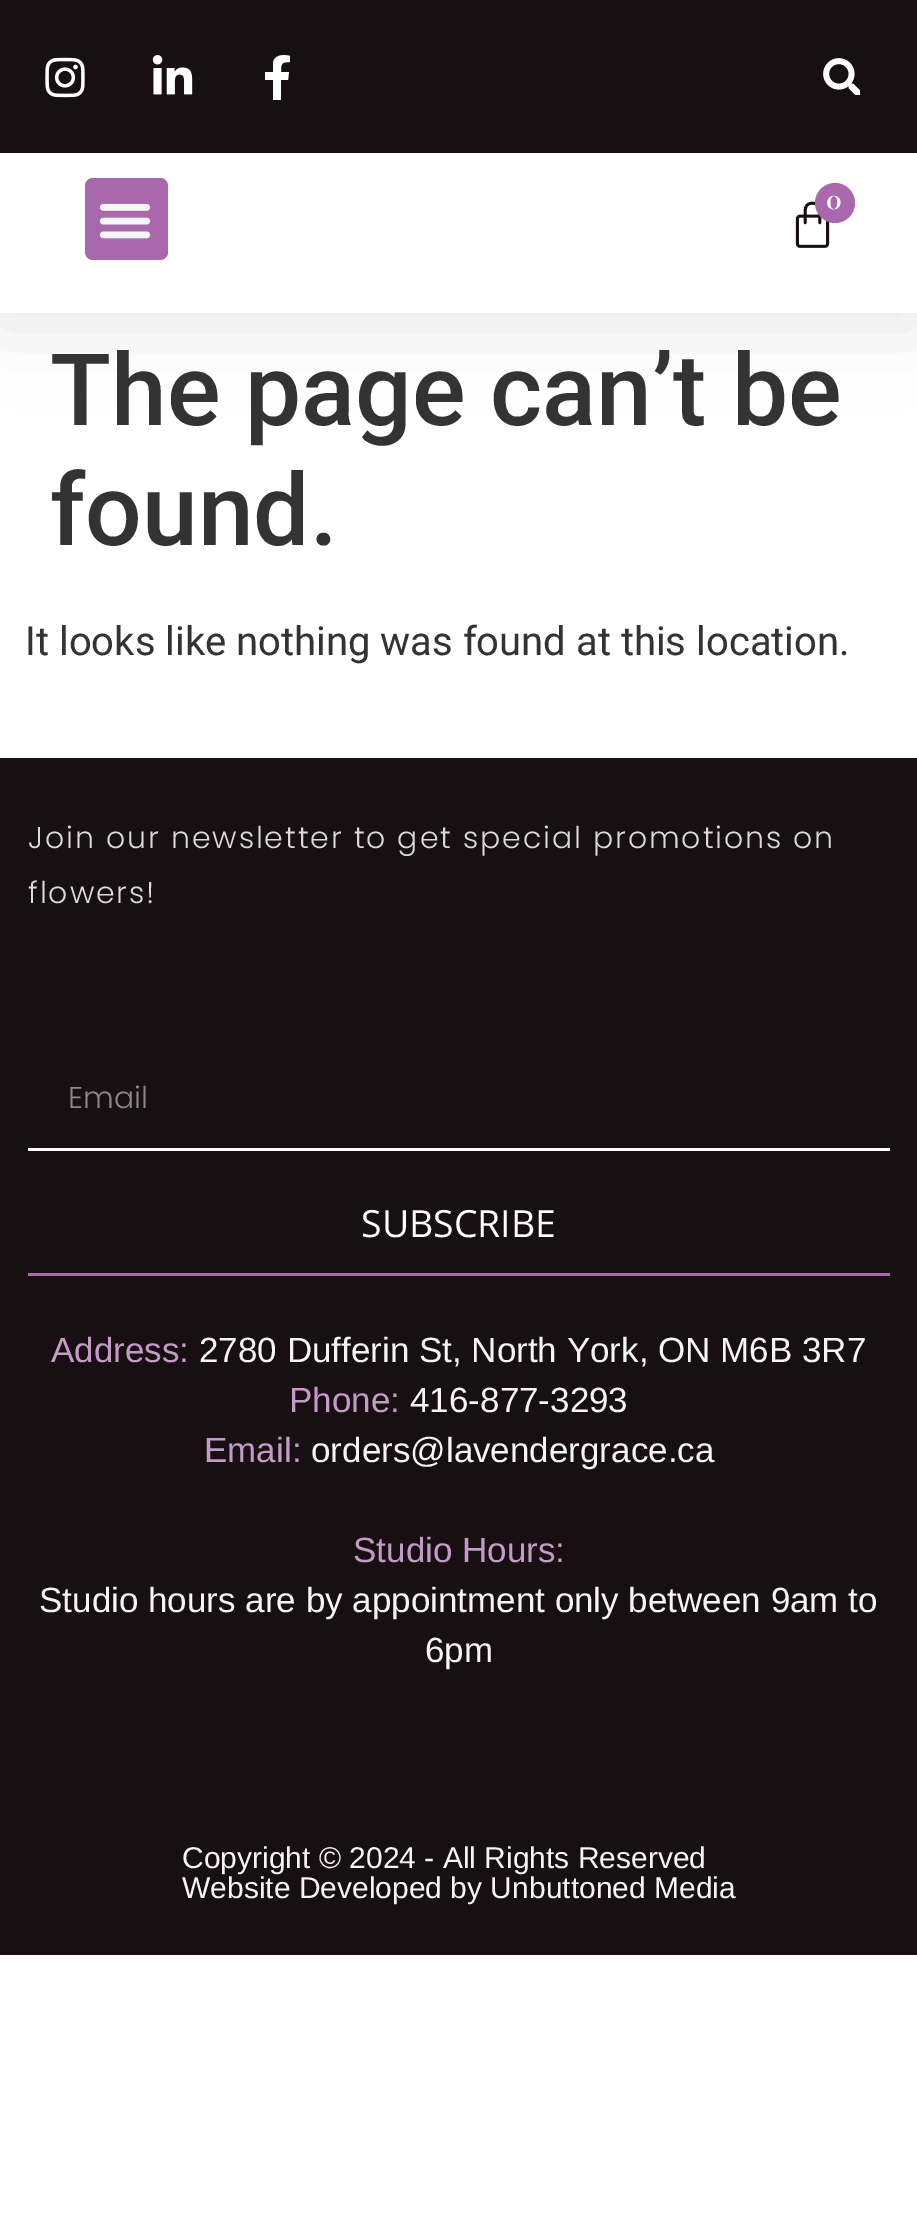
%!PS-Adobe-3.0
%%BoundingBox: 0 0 917 2216
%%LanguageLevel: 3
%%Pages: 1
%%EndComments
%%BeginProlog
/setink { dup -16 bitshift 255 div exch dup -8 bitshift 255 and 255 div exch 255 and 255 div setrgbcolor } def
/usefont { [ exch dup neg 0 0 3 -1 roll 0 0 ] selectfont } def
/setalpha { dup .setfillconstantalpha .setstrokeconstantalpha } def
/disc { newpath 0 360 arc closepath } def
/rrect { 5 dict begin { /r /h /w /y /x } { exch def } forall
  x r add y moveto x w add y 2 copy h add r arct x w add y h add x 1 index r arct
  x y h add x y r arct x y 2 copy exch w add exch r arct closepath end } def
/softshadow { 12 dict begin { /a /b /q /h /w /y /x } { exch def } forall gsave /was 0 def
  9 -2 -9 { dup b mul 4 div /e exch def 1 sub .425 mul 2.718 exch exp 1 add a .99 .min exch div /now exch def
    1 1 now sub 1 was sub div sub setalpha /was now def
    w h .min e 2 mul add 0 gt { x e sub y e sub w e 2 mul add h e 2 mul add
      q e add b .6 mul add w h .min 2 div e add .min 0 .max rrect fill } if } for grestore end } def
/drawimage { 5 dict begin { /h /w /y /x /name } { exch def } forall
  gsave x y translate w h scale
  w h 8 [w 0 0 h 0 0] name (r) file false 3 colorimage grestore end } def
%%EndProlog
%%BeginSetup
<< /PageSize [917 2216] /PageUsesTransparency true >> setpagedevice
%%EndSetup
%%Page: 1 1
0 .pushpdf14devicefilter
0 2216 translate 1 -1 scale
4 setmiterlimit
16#FFFFFF setink
0 0 917 2216 rectfill
16#000000 setink
0 13 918 312 0 37.5 0.1 softshadow
16#170F11 setink
0 0 917 153 rectfill
(img1.raw) 45 57 40 41 drawimage
(img2.raw) 152 55 41 40 drawimage
16#FFFFFF setink
288 80 moveto 289 72 lineto 281 72 lineto 281 64 281 62 290 62 curveto 290 56 lineto 283 54 274 55 273 63 curveto 273 72 lineto 265 72 lineto 265 80 lineto 273 80 lineto 273 100 lineto 281 100 lineto 281 80 lineto closepath fill
(img3.raw) 823 58 37 37 drawimage
0 153 917 160 rectfill
16#A868AB setink
85 178 83 82 8 rrect fill
(img4.raw) 99 203 52 36 drawimage
(img5.raw) 795 201 35 47 drawimage
835 203 20 disc fill
/PlayfairDisplay-SemiBold 25 usefont
16#FFFFFF setink
826 209 moveto (0) show
/Roboto-Medium 100 usefont
16#333333 setink
50 425 moveto (The page can’t be) show
50 545 moveto (found.) show
/Roboto-Regular 40 usefont
25 655 moveto (It looks like nothing was found at this location.) show
16#170F11 setink
0 758 917 1197 rectfill
/Poppins-Light 30 usefont
16#DADADA setink
28 848 moveto 1.9 0 (Join our newsletter to get special promotions on) ashow
28 903 moveto 1.9 0 (flowers!) ashow
16#FFFFFF setink
28 1148 862 3 rectfill
16#8C898A setink
68 1108 moveto (Email) show
16#A868AB setink
28 1273 862 3 rectfill
/OpenSans-Regular 37.5 usefont
16#FFFFFF setink
361 1237 moveto (SUBSCRIBE) show
/LiberationSans-Regular 35 usefont
16#C49AC7 setink
51 1362 moveto (Address:) show
16#F5F5F5 setink
199 1362 moveto (2780 Dufferin St, North York, ON M6B 3R7) show
16#C49AC7 setink
289 1412 moveto (Phone:) show
16#F5F5F5 setink
410 1412 moveto (416-877-3293) show
16#C49AC7 setink
204 1462 moveto (Email:) show
16#F5F5F5 setink
311 1462 moveto (orders@lavendergrace.ca) show
16#C49AC7 setink
353 1562 moveto (Studio Hours:) show
16#F5F5F5 setink
39 1612 moveto (Studio hours are by appointment only between 9am to) show
425 1662 moveto (6pm) show
/LiberationSans-Regular 30 usefont
182 1868 moveto (Copyright © 2024 - All Rights Reserved) show
182 1898 moveto (Website Developed by Unbuttoned Media) show
.poppdf14devicefilter showpage
%%EOF
